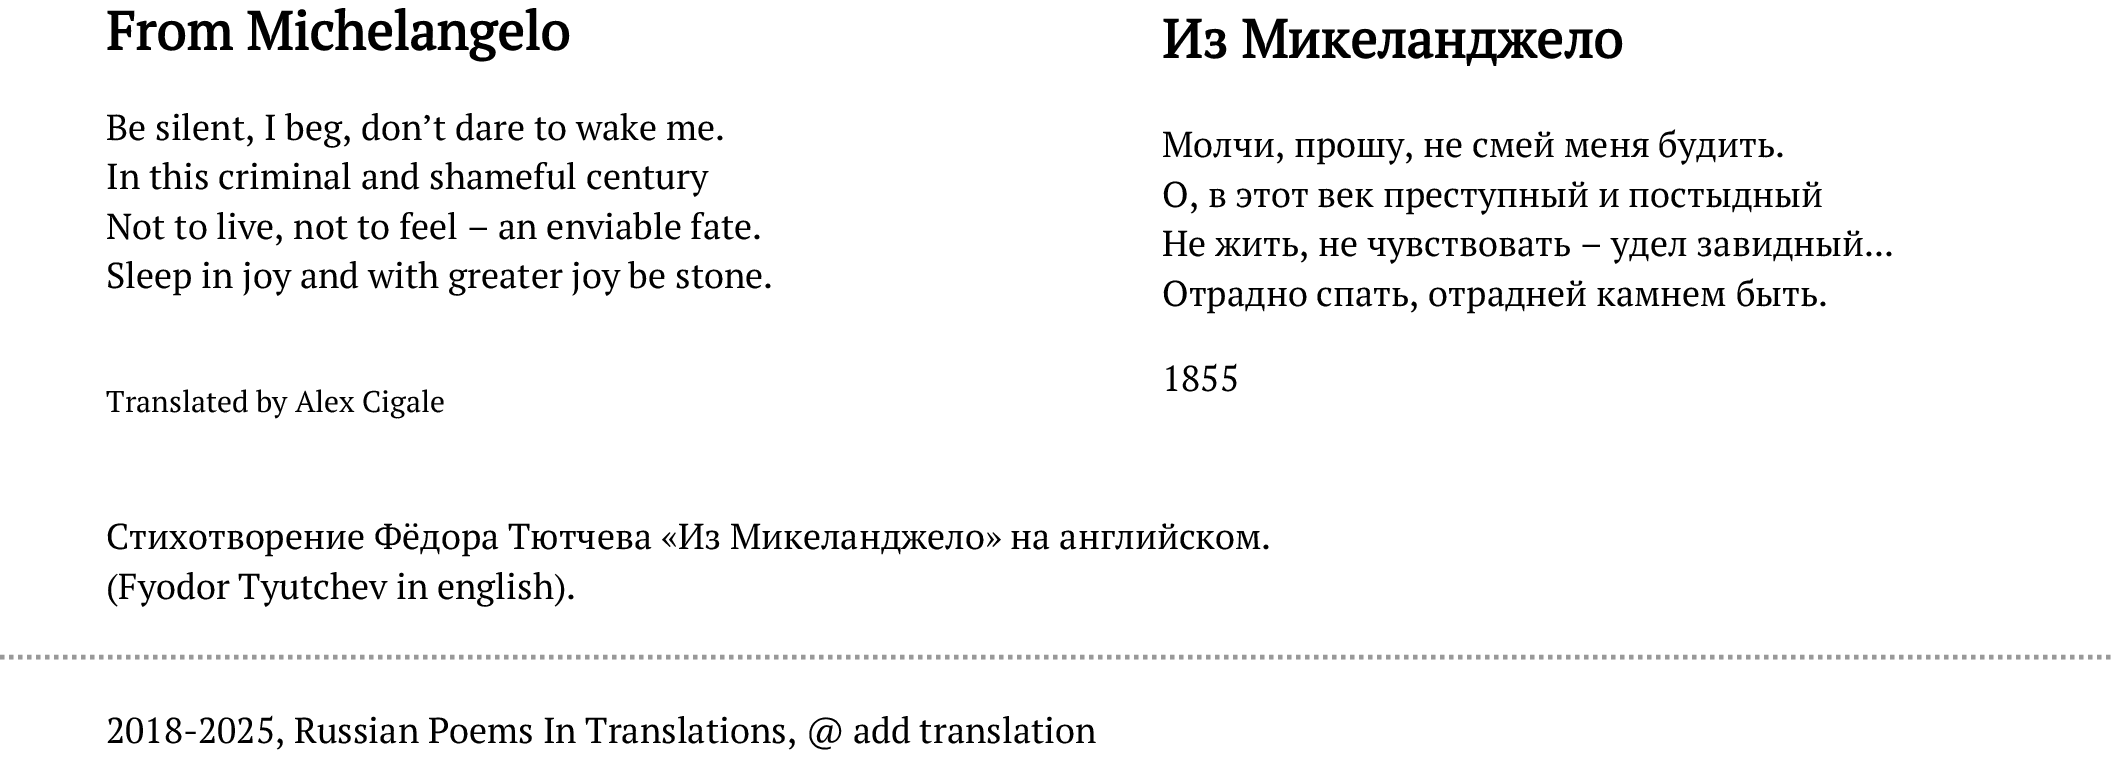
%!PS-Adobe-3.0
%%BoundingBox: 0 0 2112 768
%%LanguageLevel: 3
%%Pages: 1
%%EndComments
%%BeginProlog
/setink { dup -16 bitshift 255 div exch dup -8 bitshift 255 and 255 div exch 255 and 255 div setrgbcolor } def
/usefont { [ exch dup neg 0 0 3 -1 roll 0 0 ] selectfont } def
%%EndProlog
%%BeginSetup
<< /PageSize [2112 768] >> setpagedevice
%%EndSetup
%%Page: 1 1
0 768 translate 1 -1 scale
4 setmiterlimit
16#FFFFFF setink
0 0 2112 768 rectfill
/PTSerif-Bold 54 usefont
16#000000 setink
106 50 moveto (From Michelangelo) show
/PTSerif-Regular 36 usefont
[
    [(Be silent, I beg, don’t dare to wake me.) 106 140]
    [(In this criminal and shameful century) 106 189]
    [(Not to live, not to feel – an enviable fate.) 106 239]
    [(Sleep in joy and with greater joy be stone.) 106 288]
] { aload pop moveto show } forall
/PTSerif-Regular 29.9 usefont
106 412 moveto (Translated by Alex Cigale) show
/PTSerif-Bold 54 usefont
1162 58 moveto (Из Микеланджело) show
/PTSerif-Regular 36 usefont
[
    [(Молчи, прошу, не смей меня будить.) 1162 157]
    [(О, в этот век преступный и постыдный) 1162 207]
    [(Не жить, не чувствовать – удел завидный...) 1162 256]
    [(Отрадно спать, отрадней камнем быть.) 1162 306]
    [(1855) 1162 391]
    [(Стихотворение Фёдора Тютчева «Из Микеланджело» на английском.) 106 549]
    [(\(Fyodor Tyutchev in english\).) 106 599]
] { aload pop moveto show } forall
16#999999 setink
4.5 setlinewidth
[4.5 4.5] 0 setdash
0 657 moveto 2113 657 lineto stroke
16#000000 setink
106 743 moveto (2018-2025, Russian Poems In Translations, @ add translation) show
showpage
%%EOF
